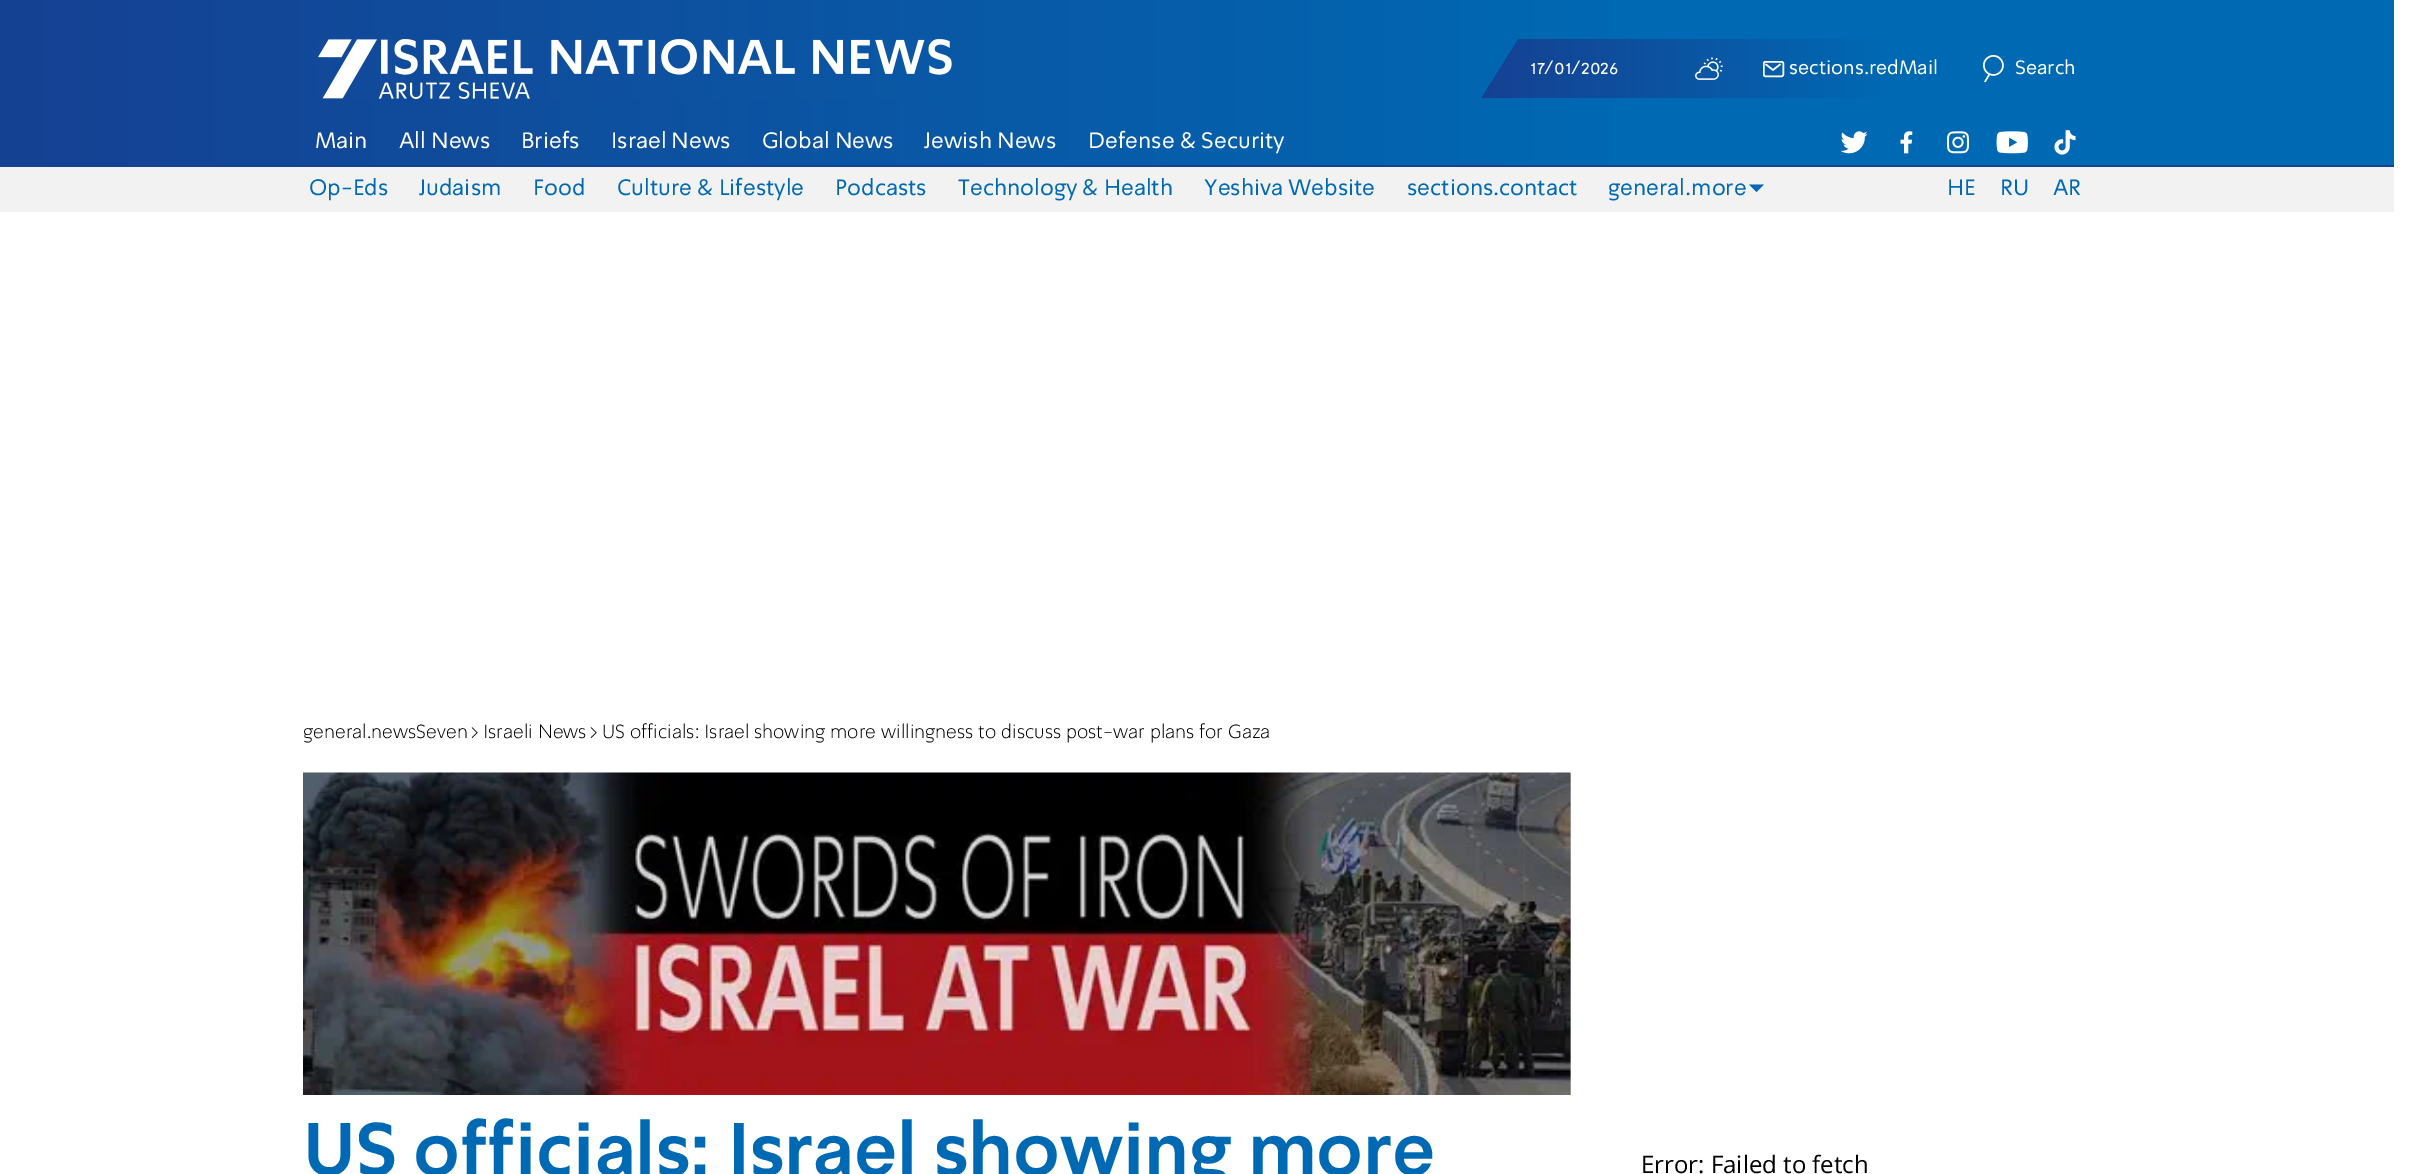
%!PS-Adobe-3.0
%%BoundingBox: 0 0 2416 1174
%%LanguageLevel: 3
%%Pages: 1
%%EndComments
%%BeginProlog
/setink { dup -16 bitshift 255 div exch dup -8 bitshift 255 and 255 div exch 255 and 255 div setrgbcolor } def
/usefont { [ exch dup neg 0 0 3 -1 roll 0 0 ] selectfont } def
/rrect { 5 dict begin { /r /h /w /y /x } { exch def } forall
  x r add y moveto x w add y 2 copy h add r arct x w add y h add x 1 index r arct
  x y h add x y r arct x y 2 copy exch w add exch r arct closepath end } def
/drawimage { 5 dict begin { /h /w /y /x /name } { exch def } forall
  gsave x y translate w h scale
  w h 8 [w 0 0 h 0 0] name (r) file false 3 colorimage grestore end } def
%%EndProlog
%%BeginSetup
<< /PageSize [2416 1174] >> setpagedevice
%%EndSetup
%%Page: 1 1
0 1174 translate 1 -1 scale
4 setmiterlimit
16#FFFFFF setink
0 0 2416 1174 rectfill
16#F2F2F2 setink
0 167 2394 45 rectfill
gsave 0 0 moveto 2394 0 lineto 2394 165 lineto 0 165 lineto closepath clip newpath
<< /ShadingType 2 /ColorSpace /DeviceRGB /Coords [2394 82 0 83] /Extend [true true] /Function << /FunctionType 3 /Domain [0 1] /Functions [<< /FunctionType 2 /Domain [0 1] /C0 [0 0.412 0.702] /C1 [0 0.412 0.702] /N 1 >> << /FunctionType 2 /Domain [0 1] /C0 [0 0.412 0.702] /C1 [0.086 0.255 0.576] /N 1 >>] /Bounds [0.32] /Encode [0 1 0 1] >> >> shfill grestore
16#164193 setink
0 165 2394 2 rectfill
(img1.raw) 318 39 634 60 drawimage
gsave 1482 98 moveto 1519 39 lineto 2076 39 lineto 2076 98 lineto closepath clip newpath
<< /ShadingType 2 /ColorSpace /DeviceRGB /Coords [2076 69 1482 69] /Extend [true true] /Function << /FunctionType 3 /Domain [0 1] /Functions [<< /FunctionType 2 /Domain [0 1] /C0 [0 0.412 0.702] /C1 [0 0.412 0.702] /N 1 >> << /FunctionType 2 /Domain [0 1] /C0 [0 0.412 0.702] /C1 [0.086 0.255 0.576] /N 1 >>] /Bounds [0.32] /Encode [0 1 0 1] >> >> shfill grestore
/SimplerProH-Regular 19.5 usefont
16#FFFFFF setink
1530 74 moveto (17/01/2026) show
(img2.raw) 1695 57 28 23 drawimage
1.5 setlinewidth
1763.75 61.75 19.5 14.5 1.75 rrect stroke
1 setlinecap
1 setlinejoin
1766 64.5 moveto 1773 70 lineto 1780 64.5 lineto stroke
1789 74 moveto (sections.redMail) show
(img3.raw) 1983 54 21 29 drawimage
2015 74 moveto (Search) show
/SimplerProH-Regular 22.5 usefont
[
    [(Main) 315 148]
    [(All News) 399 148]
    [(Briefs) 521 148]
    [(Israel News) 611 148]
    [(Global News) 762 148]
    [(Jewish News) 924 148]
    [(Defense & Security) 1088 148]
] { aload pop moveto show } forall
(img4.raw) 1840 131 28 23 drawimage
(img5.raw) 1900 131 13 23 drawimage
(img6.raw) 1947 131 22 23 drawimage
(img7.raw) 1996 131 32 23 drawimage
(img8.raw) 2054 130 22 25 drawimage
16#0069B3 setink
[
    [(Op-Eds) 309 195]
    [(Judaism) 419 195]
    [(Food) 533 195]
    [(Culture & Lifestyle) 617 195]
    [(Podcasts) 835 195]
    [(Technology & Health) 958 195]
    [(Yeshiva Website) 1204 195]
    [(sections.contact) 1407 195]
    [(general.more) 1608 195]
] { aload pop moveto show } forall
1749 184.5 moveto 1764 184.5 lineto 1756.5 192 lineto closepath fill
[
    [(HE) 1947 195]
    [(RU) 2000 195]
    [(AR) 2053 195]
] { aload pop moveto show } forall
/SimplerProH-Light 19.5 usefont
16#000000 setink
[
    [(general.newsSeven) 303 738]
    [(>) 470 738]
    [(Israeli News) 483 738]
    [(>) 589 738]
    [(US officials: Israel showing more willingness to discuss post-war plans for Gaza) 602 738]
] { aload pop moveto show } forall
16#C0C0C0 setink
1570 773 1 322 rectfill
(img9.raw) 303 772 1268 323 drawimage
/SimplerProH-Bold 73 usefont
16#0069B3 setink
303 1175 moveto (US officials: Israel showing more) show
/OpenSans-Regular 24 usefont
16#000000 setink
1641 1173 moveto (Error: Failed to fetch) show
showpage
%%EOF
